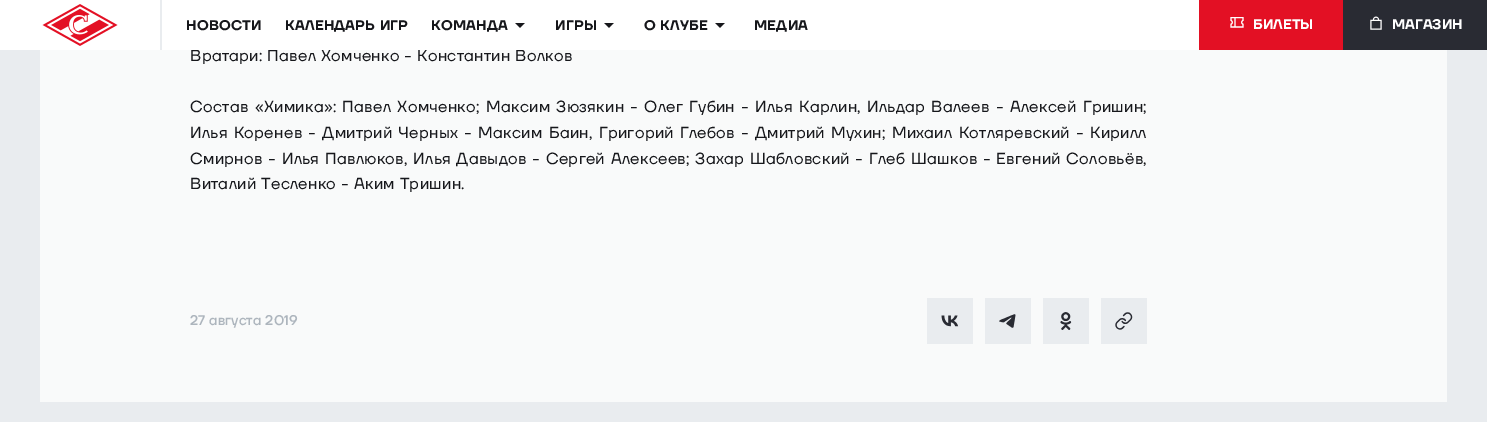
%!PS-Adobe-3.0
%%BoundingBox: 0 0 1487 422
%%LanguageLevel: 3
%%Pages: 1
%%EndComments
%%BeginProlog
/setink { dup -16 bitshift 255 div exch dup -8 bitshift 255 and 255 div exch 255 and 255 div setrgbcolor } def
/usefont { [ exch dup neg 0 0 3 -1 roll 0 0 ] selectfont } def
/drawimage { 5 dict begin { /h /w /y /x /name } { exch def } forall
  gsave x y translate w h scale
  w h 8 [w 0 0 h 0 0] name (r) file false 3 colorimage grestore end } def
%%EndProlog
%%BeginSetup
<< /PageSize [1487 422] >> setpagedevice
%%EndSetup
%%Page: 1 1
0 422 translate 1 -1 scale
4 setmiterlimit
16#E9ECEF setink
0 0 1487 422 rectfill
16#F9FAFA setink
40 50 1407 352 rectfill
/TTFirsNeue-Regular 16 usefont
16#16171B setink
190 61 moveto 0.32 0 (Вратари: Павел Хомченко - Константин Волков) ashow
16#FFFFFF setink
0 0 1199 50 rectfill
(img1.raw) 42 4 76 42 drawimage
16#E9ECEF setink
160 0 2 50 rectfill
/TTFirsNeue-SemiBold 14 usefont
16#16171B setink
186 30 moveto 0.25 0 (НОВОСТИ) ashow
285 30 moveto 0.25 0 (КАЛЕНДАРЬ ИГР) ashow
431 30 moveto 0.25 0 (КОМАНДА) ashow
(img2.raw) 515 23 10 5 drawimage
555 30 moveto 0.25 0 (ИГРЫ) ashow
(img2.raw) 604 23 10 5 drawimage
644 30 moveto 0.25 0 (О КЛУБЕ) ashow
(img2.raw) 715 23 10 5 drawimage
754 30 moveto 0.25 0 (МЕДИА) ashow
16#E31024 setink
1199 0 144 50 rectfill
(img3.raw) 1230 17 14 11 drawimage
16#FFFFFF setink
1253 29 moveto (БИЛЕТЫ) show
16#292B33 setink
1343 0 144 50 rectfill
(img4.raw) 1370 16 12 14 drawimage
16#FFFFFF setink
1392 29 moveto (МАГАЗИН) show
/TTFirsNeue-Regular 16 usefont
16#16171B setink
190 112 moveto 1.25 0 32 0.32 0 (Состав «Химика»: Павел Хомченко; Максим Зюзякин - Олег Губин - Илья Карлин, Ильдар Валеев - Алексей Гришин;) awidthshow
190 138 moveto 1.25 0 32 0.32 0 (Илья Коренев - Дмитрий Черных - Максим Баин, Григорий Глебов - Дмитрий Мухин; Михаил Котляревский - Кирилл) awidthshow
190 164 moveto 0.75 0 32 0.32 0 (Смирнов - Илья Павлюков, Илья Давыдов - Сергей Алексеев; Захар Шабловский - Глеб Шашков - Евгений Соловьёв,) awidthshow
190 189 moveto 0.32 0 (Виталий Тесленко - Аким Тришин.) ashow
/TTFirsNeue-Medium 14 usefont
16#ADB5BD setink
190 325 moveto 0.1 0 (27 августа 2019) ashow
16#E9ECEF setink
927 298 46 46 rectfill
(img5.raw) 941 315 18 12 drawimage
985 298 46 46 rectfill
(img6.raw) 999 314 17 14 drawimage
1043 298 46 46 rectfill
(img7.raw) 1060 312 12 18 drawimage
1101 298 46 46 rectfill
(img8.raw) 1115 312 18 18 drawimage
showpage
%%EOF
